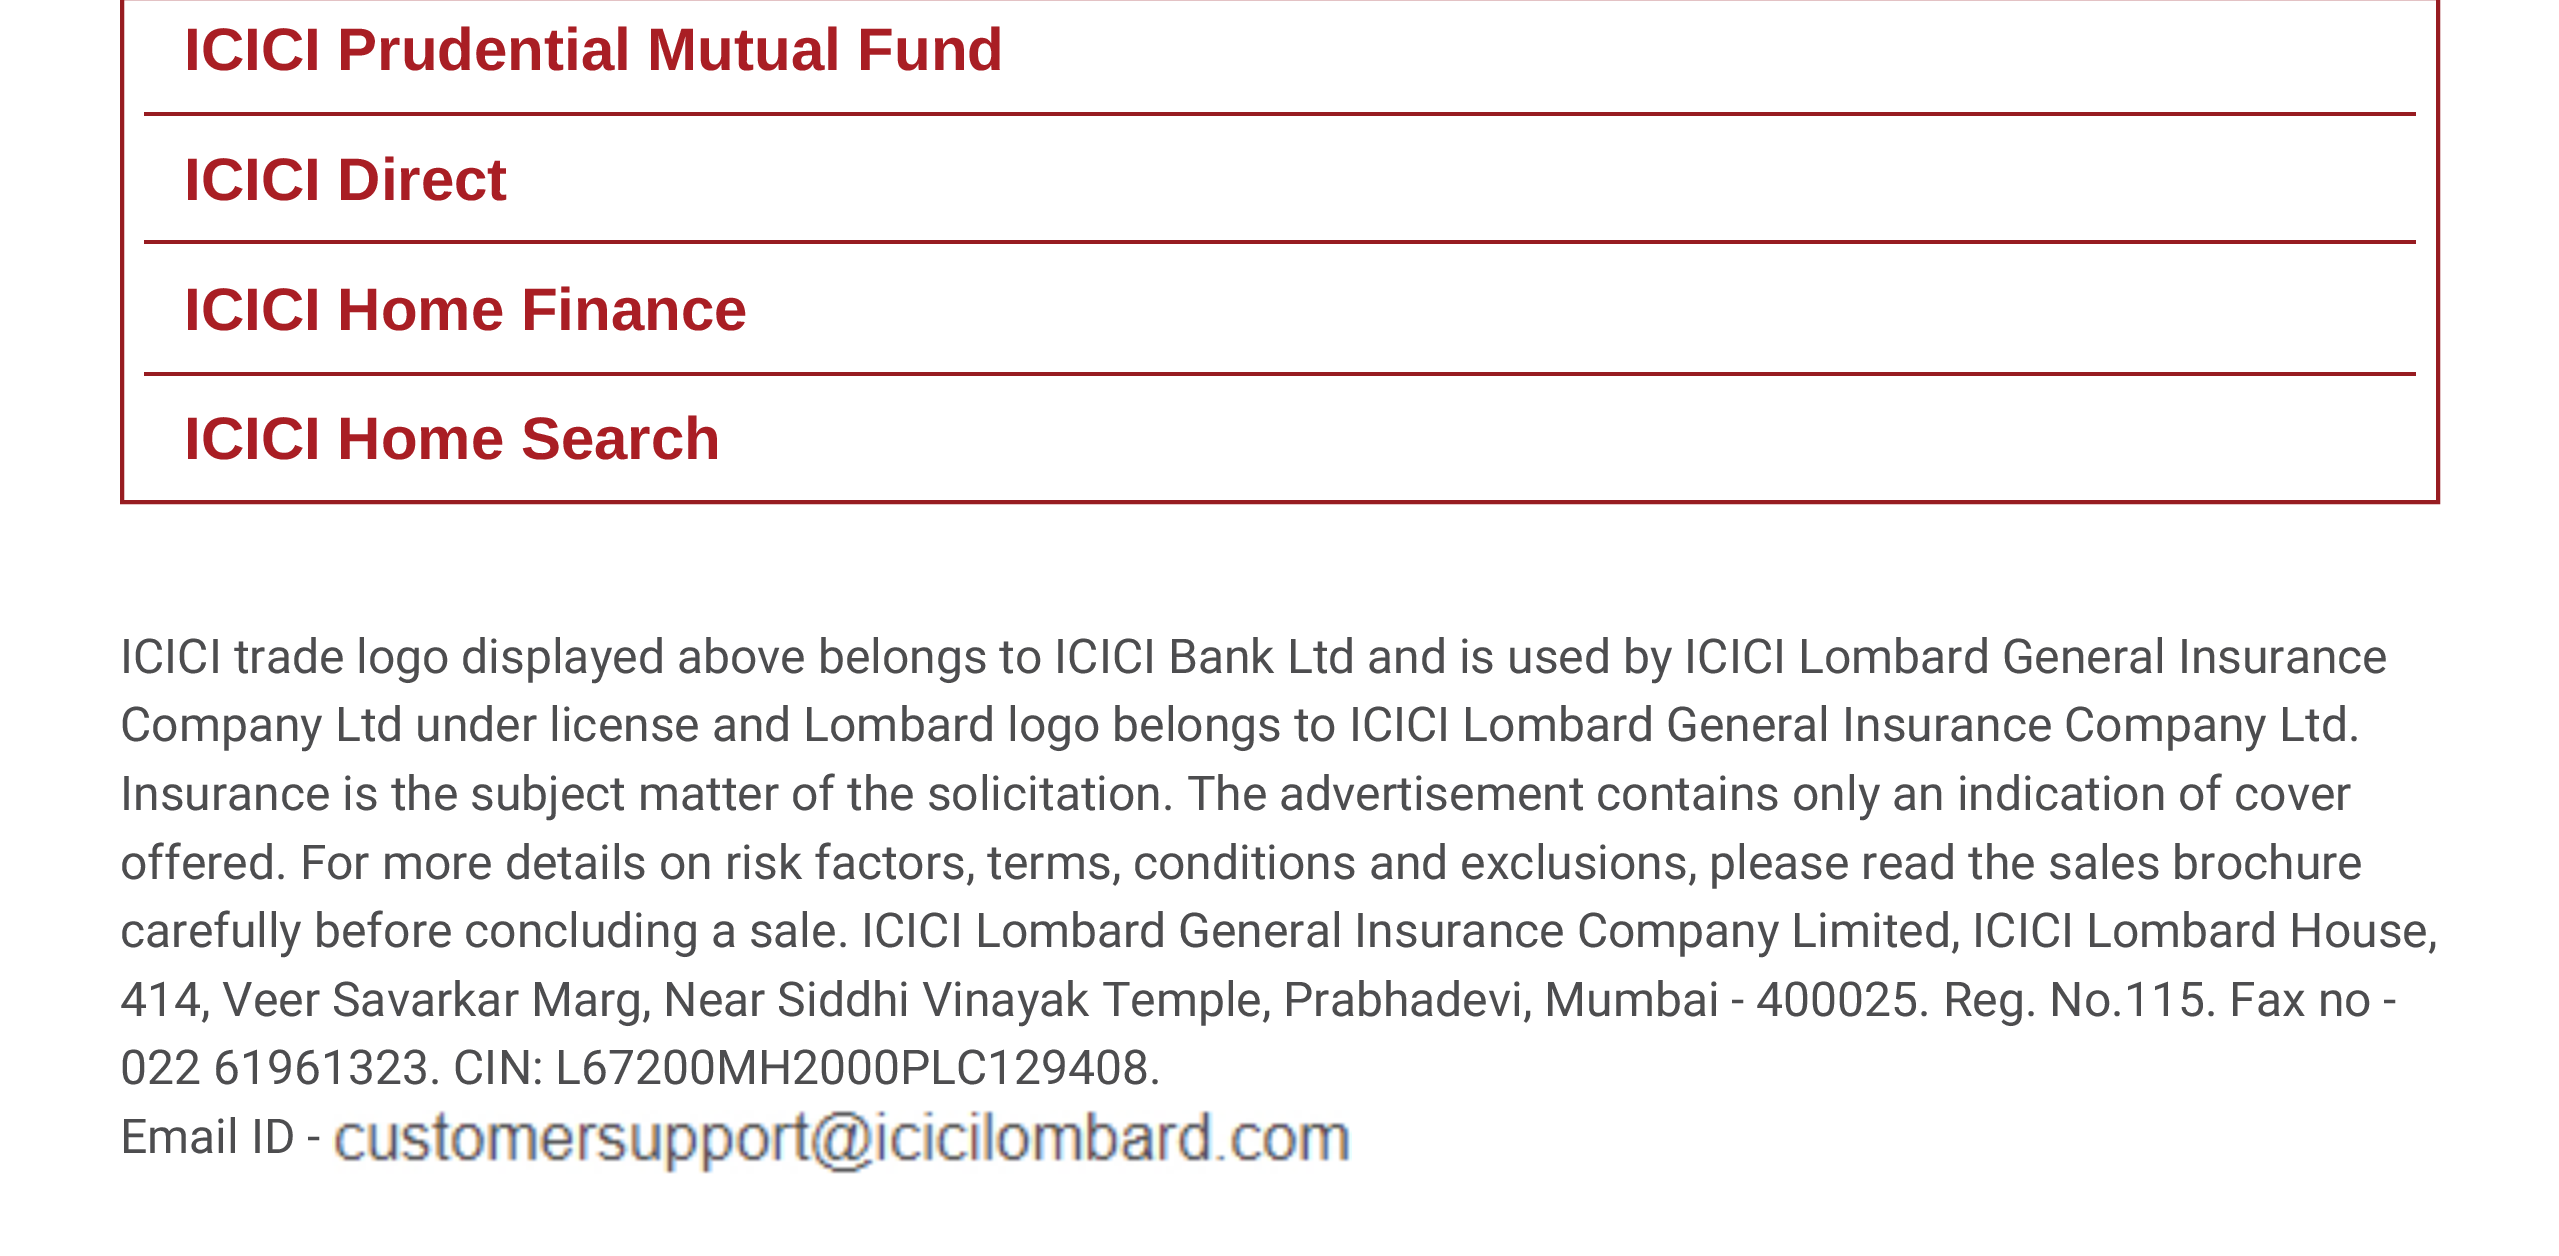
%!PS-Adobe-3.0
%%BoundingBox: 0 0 2559 1256
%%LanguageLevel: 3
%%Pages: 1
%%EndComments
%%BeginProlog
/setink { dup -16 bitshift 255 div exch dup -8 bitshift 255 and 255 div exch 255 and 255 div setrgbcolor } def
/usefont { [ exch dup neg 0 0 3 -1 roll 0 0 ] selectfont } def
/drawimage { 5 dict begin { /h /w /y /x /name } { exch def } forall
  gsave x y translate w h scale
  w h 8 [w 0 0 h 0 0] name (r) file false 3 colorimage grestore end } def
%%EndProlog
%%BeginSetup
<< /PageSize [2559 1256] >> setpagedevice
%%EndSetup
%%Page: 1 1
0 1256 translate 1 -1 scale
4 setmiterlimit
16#FFFFFF setink
0 0 2559 1256 rectfill
16#971C21 setink
4 setlinewidth
122 -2 2316 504 rectstroke
/LiberationSans-Bold 60 usefont
16#A91E24 setink
184 70 moveto (ICICI Prudential Mutual Fund) show
16#971C21 setink
144 112 2272 4 rectfill
16#A91E24 setink
184 200 moveto (ICICI Direct) show
16#971C21 setink
144 240 2272 4 rectfill
16#A91E24 setink
184 330 moveto (ICICI Home Finance) show
16#971C21 setink
144 372 2272 4 rectfill
16#A91E24 setink
184 459 moveto (ICICI Home Search) show
/Roboto-Regular 48 usefont
16#4D4D4F setink
[
    [(ICICI trade logo displayed above belongs to ICICI Bank Ltd and is used by ICICI Lombard General Insurance) 120 673]
    [(Company Ltd under license and Lombard logo belongs to ICICI Lombard General Insurance Company Ltd.) 120 741]
    [(Insurance is the subject matter of the solicitation. The advertisement contains only an indication of cover) 120 810]
    [(offered. For more details on risk factors, terms, conditions and exclusions, please read the sales brochure) 120 879]
    [(carefully before concluding a sale. ICICI Lombard General Insurance Company Limited, ICICI Lombard House,) 120 947]
    [(414, Veer Savarkar Marg, Near Siddhi Vinayak Temple, Prabhadevi, Mumbai - 400025. Reg. No.115. Fax no -) 120 1016]
    [(022 61961323. CIN: L67200MH2000PLC129408.) 120 1084]
    [(Email ID -) 120 1153]
] { aload pop moveto show } forall
(img1.raw) 332 1110 1020 64 drawimage
showpage
%%EOF
